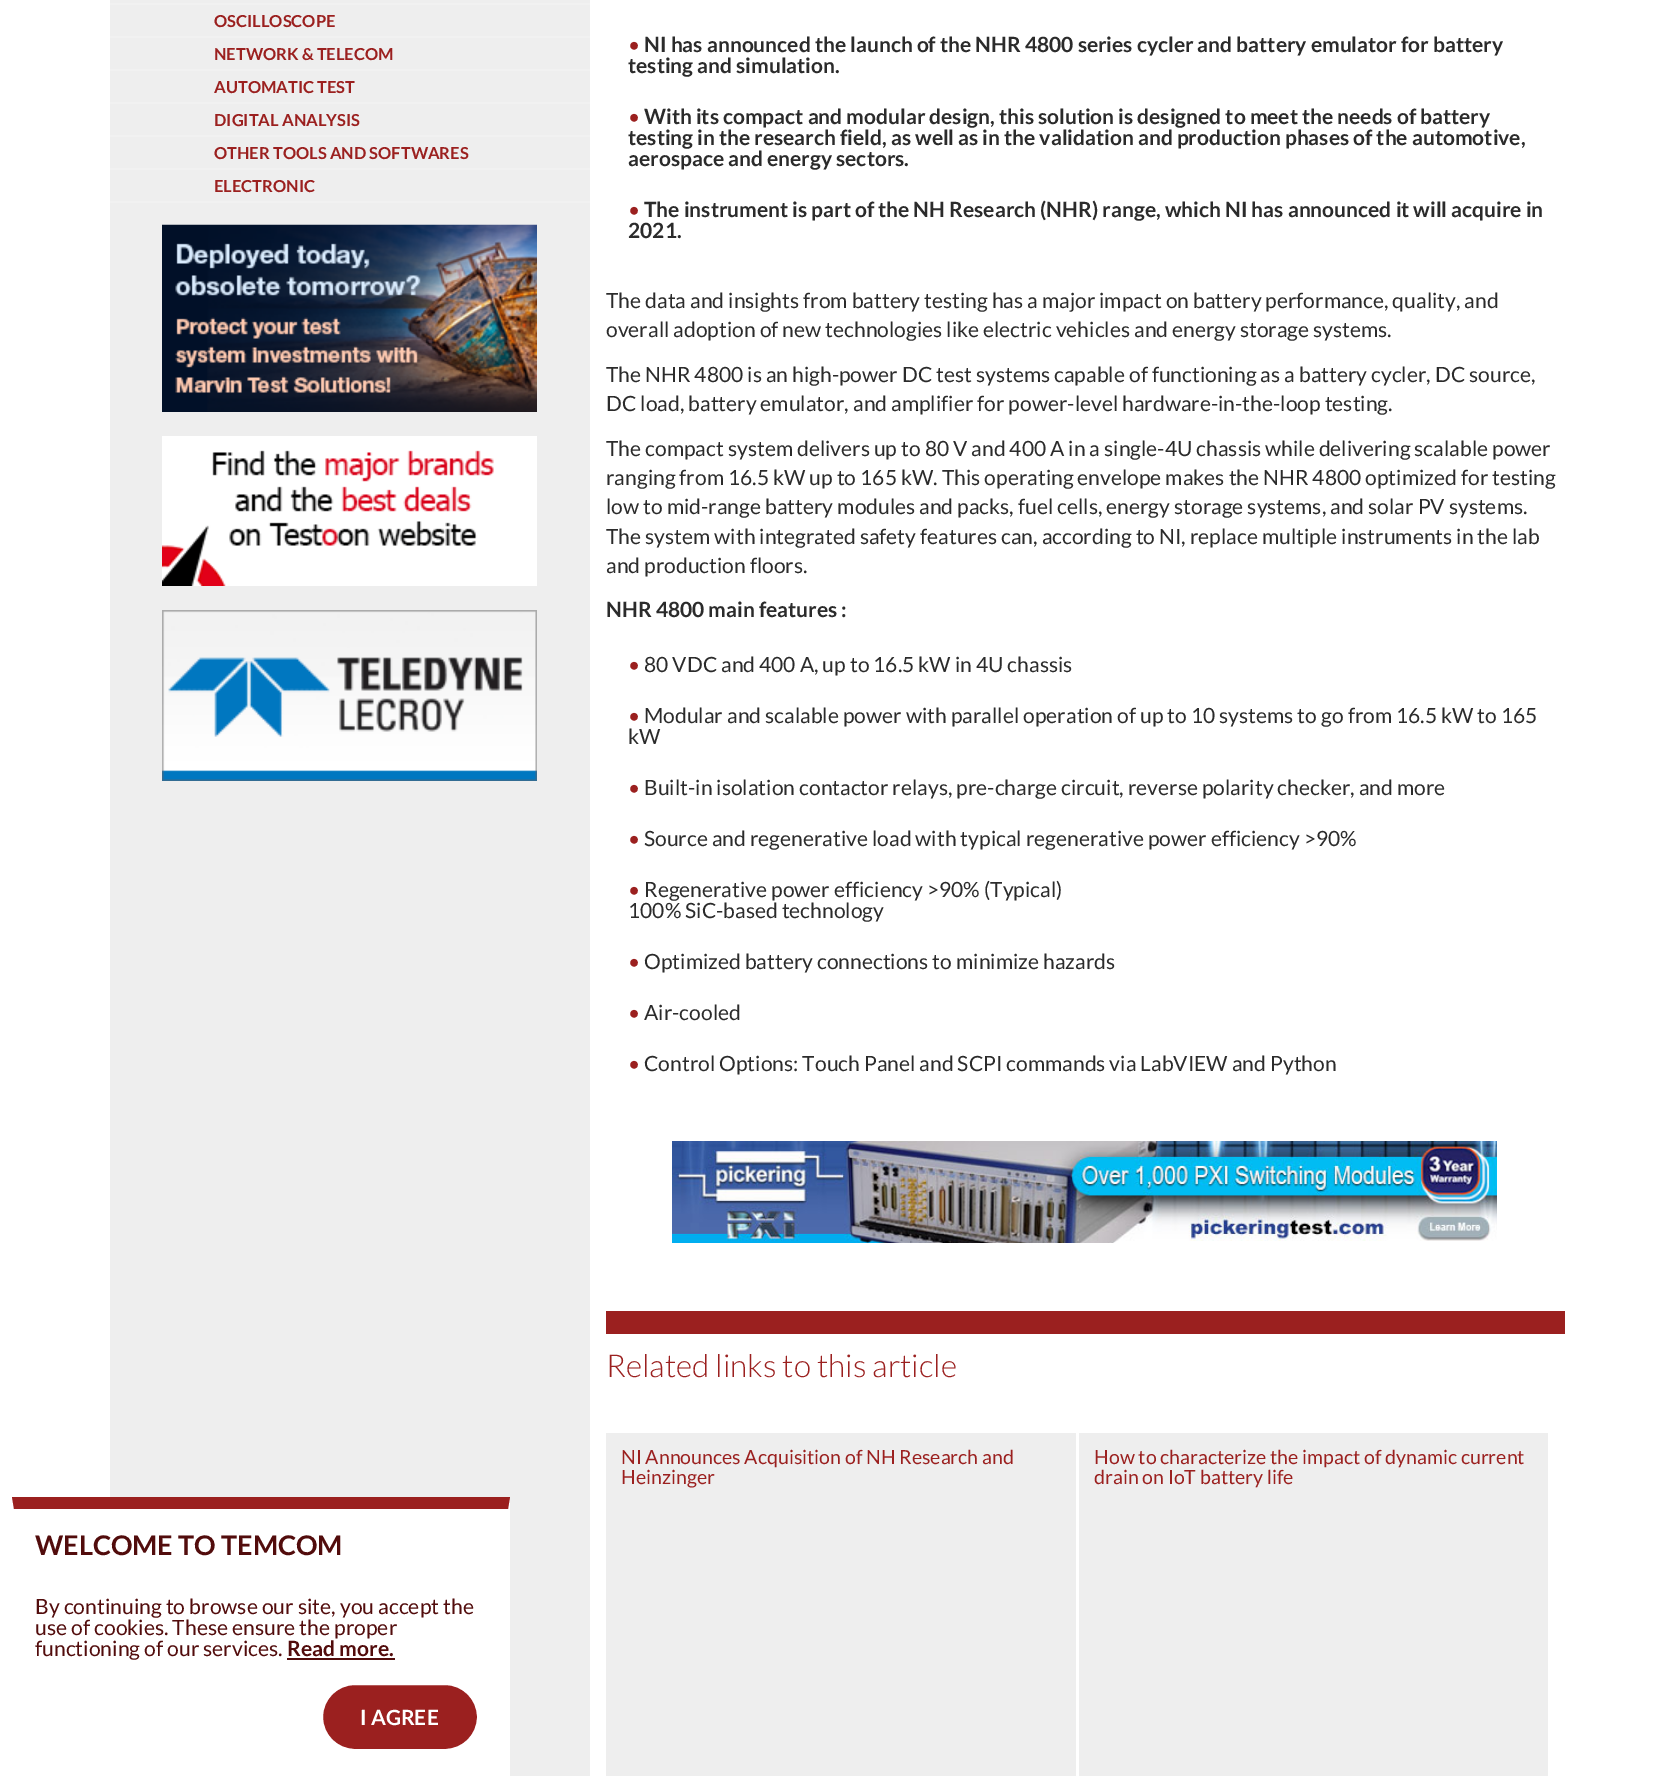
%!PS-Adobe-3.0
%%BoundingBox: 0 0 1672 1776
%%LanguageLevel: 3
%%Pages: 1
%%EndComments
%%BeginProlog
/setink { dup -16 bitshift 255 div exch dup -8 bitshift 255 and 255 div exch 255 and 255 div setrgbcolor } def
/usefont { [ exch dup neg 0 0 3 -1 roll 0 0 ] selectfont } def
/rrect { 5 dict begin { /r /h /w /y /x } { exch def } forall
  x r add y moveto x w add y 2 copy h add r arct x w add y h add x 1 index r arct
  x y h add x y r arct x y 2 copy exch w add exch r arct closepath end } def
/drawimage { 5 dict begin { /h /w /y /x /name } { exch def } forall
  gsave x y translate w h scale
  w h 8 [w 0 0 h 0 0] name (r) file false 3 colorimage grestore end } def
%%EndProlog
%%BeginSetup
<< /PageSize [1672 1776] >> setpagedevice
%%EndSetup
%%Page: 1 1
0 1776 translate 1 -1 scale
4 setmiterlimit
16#FFFFFF setink
0 0 1672 1776 rectfill
[
    [110 0 480 1776 16#EEEEEE]
    [110 201 480 2 16#F1F1F1]
    [110 3 480 2 16#F1F1F1]
] { aload pop setink rectfill } forall
/Lato-Bold 16.5 usefont
16#9B201F setink
214 27 moveto (OSCILLOSCOPE) show
16#F1F1F1 setink
110 36 480 2 rectfill
16#9B201F setink
214 60 moveto (NETWORK & TELECOM) show
16#F1F1F1 setink
110 69 480 2 rectfill
16#9B201F setink
214 93 moveto (AUTOMATIC TEST) show
16#F1F1F1 setink
110 102 480 2 rectfill
16#9B201F setink
214 126 moveto (DIGITAL ANALYSIS) show
16#F1F1F1 setink
110 135 480 2 rectfill
16#9B201F setink
214 159 moveto (OTHER TOOLS AND SOFTWARES) show
16#F1F1F1 setink
110 168 480 2 rectfill
16#9B201F setink
214 192 moveto (ELECTRONIC) show
(img1.raw) 162 224 375 188 drawimage
(img2.raw) 162 436 375 150 drawimage
(img3.raw) 162 610 375 171 drawimage
/Lato-Regular 21 usefont
628 52 moveto (•) show
/Lato-Bold 21 usefont
16#2B2B2B setink
644 52 moveto (NI has announced the launch of the NHR 4800 series cycler and battery emulator for battery) show
628 73 moveto (testing and simulation.) show
/Lato-Regular 21 usefont
16#9B201F setink
628 124 moveto (•) show
/Lato-Bold 21 usefont
16#2B2B2B setink
[
    [(With its compact and modular design, this solution is designed to meet the needs of battery) 644 124]
    [(testing in the research field, as well as in the validation and production phases of the automotive,) 628 145]
    [(aerospace and energy sectors.) 628 166]
] { aload pop moveto show } forall
/Lato-Regular 21 usefont
16#9B201F setink
628 217 moveto (•) show
/Lato-Bold 21 usefont
16#2B2B2B setink
644 217 moveto (The instrument is part of the NH Research \(NHR\) range, which NI has announced it will acquire in) show
628 238 moveto (2021.) show
/Lato-Regular 21 usefont
[
    [(The data and insights from battery testing has a major impact on battery performance, quality, and) 606 308]
    [(overall adoption of new technologies like electric vehicles and energy storage systems.) 606 337]
    [(The NHR 4800 is an high-power DC test systems capable of functioning as a battery cycler, DC source,) 606 382]
    [(DC load, battery emulator, and amplifier for power-level hardware-in-the-loop testing.) 606 411]
    [(The compact system delivers up to 80 V and 400 A in a single-4U chassis while delivering scalable power) 606 456]
    [(ranging from 16.5 kW up to 165 kW. This operating envelope makes the NHR 4800 optimized for testing) 606 485]
    [(low to mid-range battery modules and packs, fuel cells, energy storage systems, and solar PV systems.) 606 514]
    [(The system with integrated safety features can, according to NI, replace multiple instruments in the lab) 606 544]
    [(and production floors.) 606 573]
] { aload pop moveto show } forall
/Lato-Bold 21 usefont
606 617 moveto (NHR 4800 main features :) show
/Lato-Regular 21 usefont
16#9B201F setink
628 672 moveto (•) show
16#2B2B2B setink
644 672 moveto (80 VDC and 400 A, up to 16.5 kW in 4U chassis) show
16#9B201F setink
628 723 moveto (•) show
16#2B2B2B setink
644 723 moveto (Modular and scalable power with parallel operation of up to 10 systems to go from 16.5 kW to 165) show
628 744 moveto (kW) show
16#9B201F setink
628 795 moveto (•) show
16#2B2B2B setink
644 795 moveto (Built-in isolation contactor relays, pre-charge circuit, reverse polarity checker, and more) show
16#9B201F setink
628 846 moveto (•) show
16#2B2B2B setink
644 846 moveto (Source and regenerative load with typical regenerative power efficiency >90%) show
16#9B201F setink
628 897 moveto (•) show
16#2B2B2B setink
644 897 moveto (Regenerative power efficiency >90% \(Typical\)) show
628 918 moveto (100% SiC-based technology) show
16#9B201F setink
628 969 moveto (•) show
16#2B2B2B setink
644 969 moveto (Optimized battery connections to minimize hazards) show
16#9B201F setink
628 1020 moveto (•) show
16#2B2B2B setink
644 1020 moveto (Air-cooled) show
16#9B201F setink
628 1071 moveto (•) show
16#2B2B2B setink
644 1071 moveto (Control Options: Touch Panel and SCPI commands via LabVIEW and Python) show
(img4.raw) 672 1141 825 102 drawimage
16#9B201F setink
606 1311 959 23 rectfill
/Lato-Light 31.5 usefont
606 1377 moveto (Related links to this article) show
16#EEEEEE setink
606 1433 470 343 rectfill
/Lato-Regular 19.5 usefont
16#9B201F setink
621 1464 moveto (NI Announces Acquisition of NH Research and) show
621 1484 moveto (Heinzinger) show
16#EEEEEE setink
1079 1433 469 343 rectfill
16#9B201F setink
1094 1464 moveto (How to characterize the impact of dynamic current) show
1094 1484 moveto (drain on IoT battery life) show
16#FFFFFF setink
110 1497 400 279 rectfill
16#9B201F setink
12 1497 moveto 510 1497 lineto 508 1509 lineto 14 1509 lineto closepath fill
/Lato-Bold 27 usefont
16#520C0C setink
35 1555 moveto (WELCOME TO TEMCOM) show
/Lato-Regular 21.1 usefont
[
    [(By continuing to browse our site, you accept the) 35 1614]
    [(use of cookies. These ensure the proper) 35 1635]
    [(functioning of our services.) 35 1656]
] { aload pop moveto show } forall
/Lato-Bold 21.1 usefont
287 1656 moveto (Read more.) show
287 1658 108 2 rectfill
16#9B201F setink
321.5 1683.5 157 67 33.5 rrect gsave fill grestore
16#FFFFFF setink
3 setlinewidth
stroke
/Lato-Bold 21 usefont
360 1725 moveto (I AGREE) show
showpage
%%EOF
